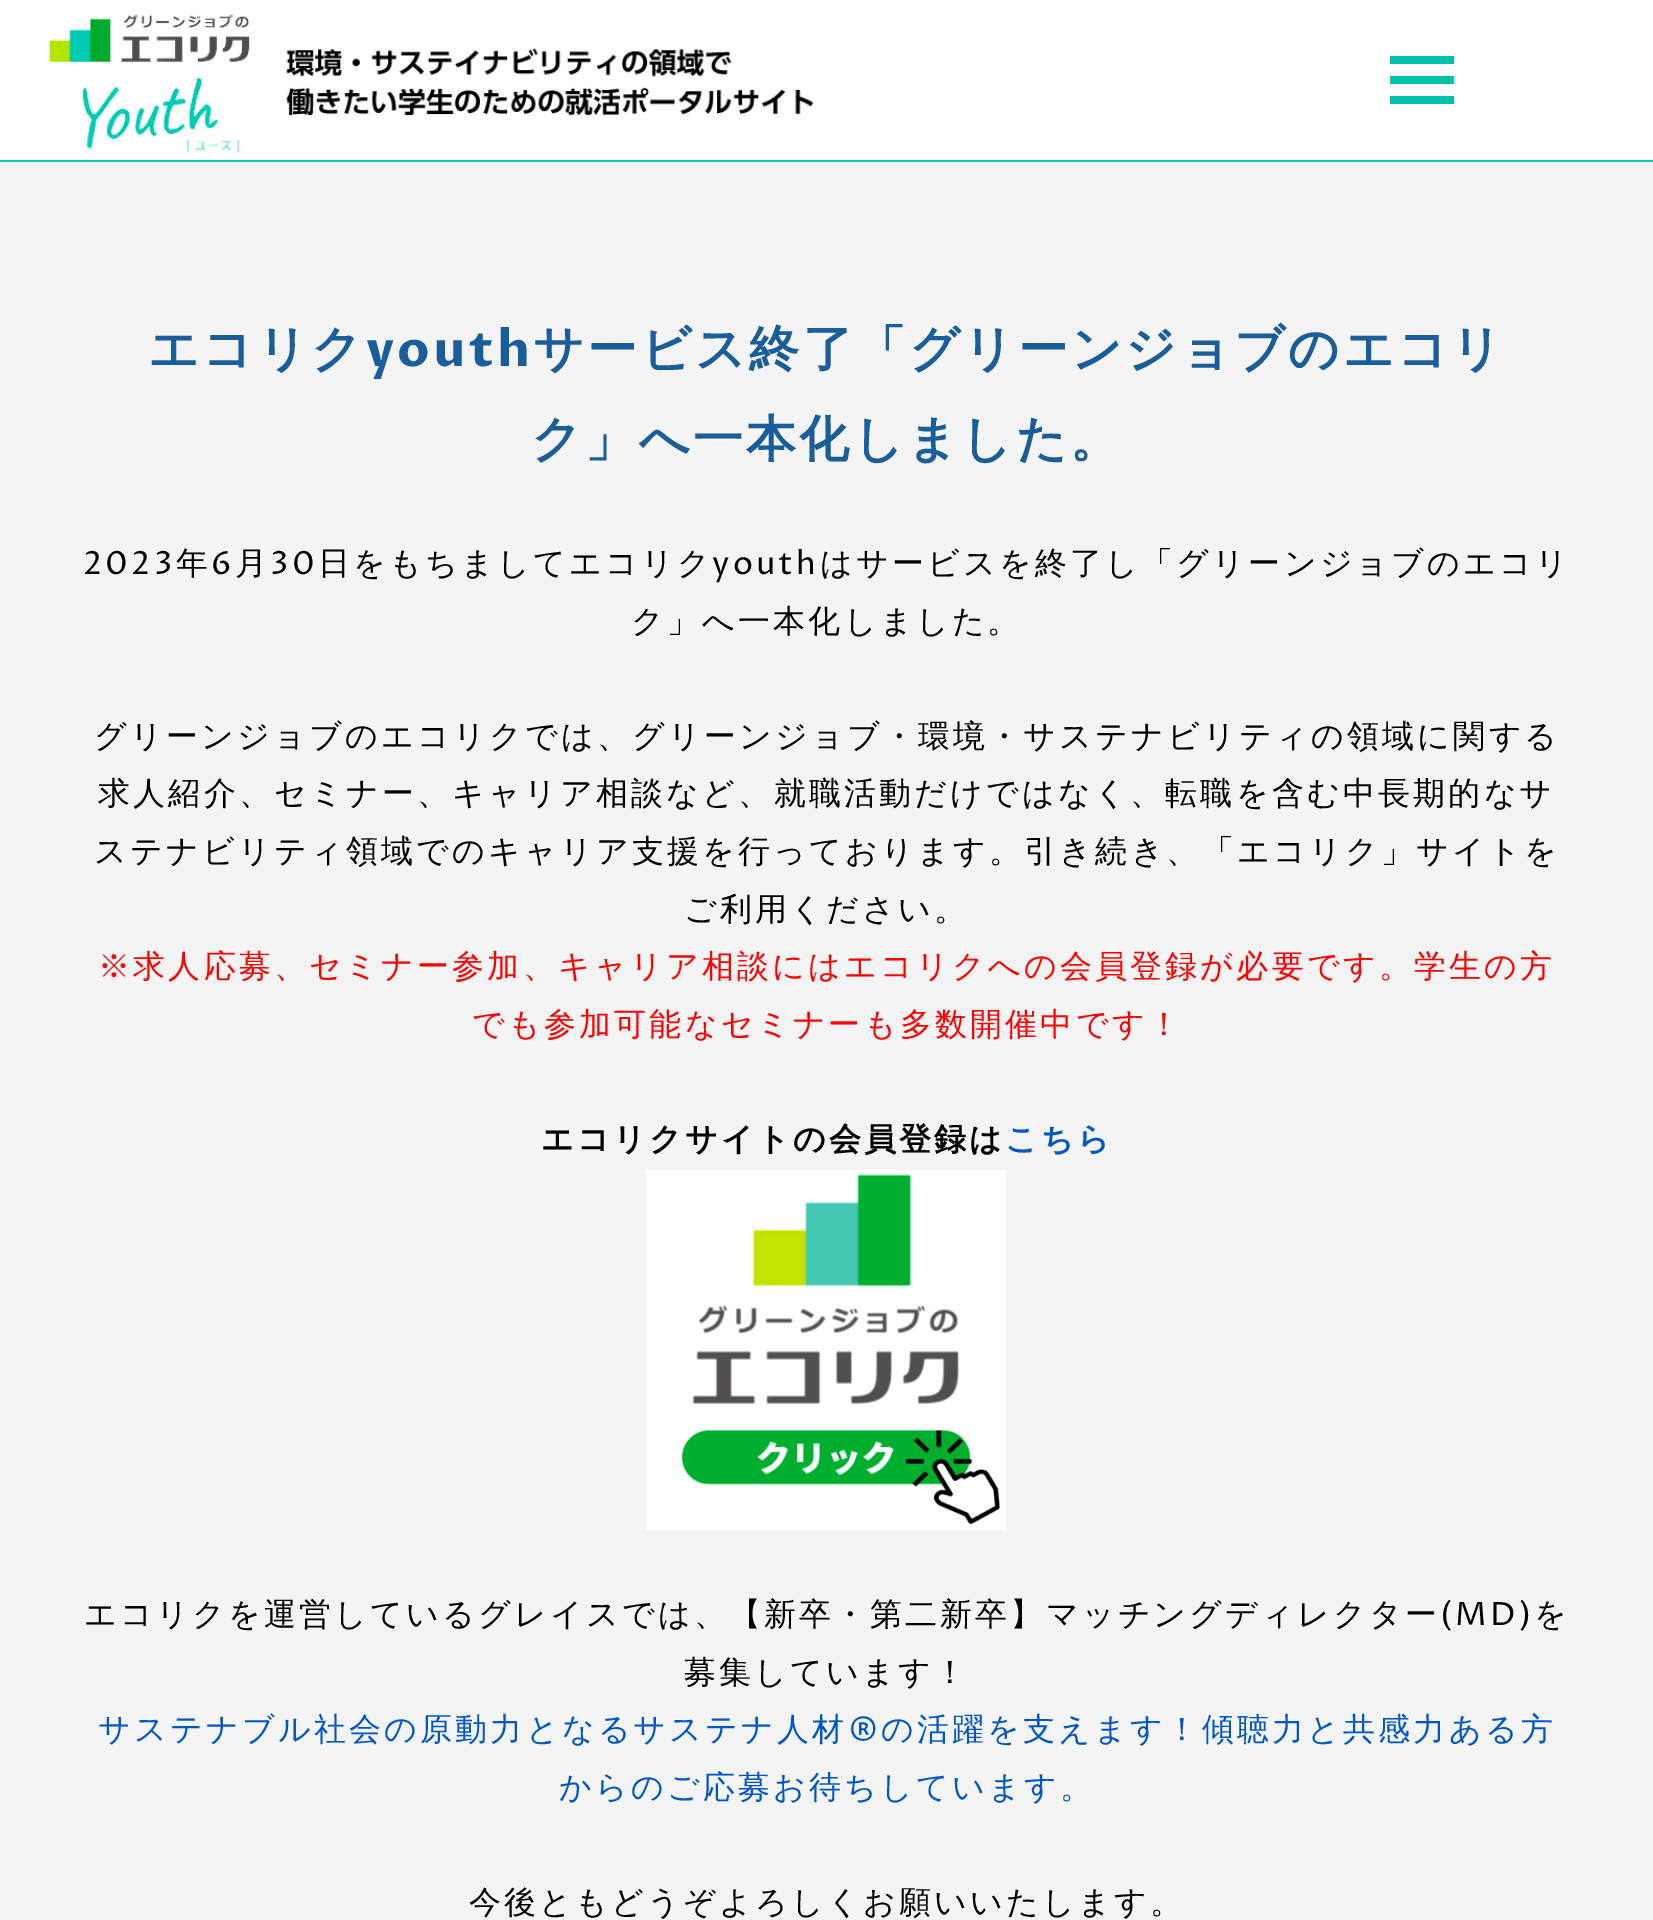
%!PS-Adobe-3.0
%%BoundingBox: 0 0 1653 1920
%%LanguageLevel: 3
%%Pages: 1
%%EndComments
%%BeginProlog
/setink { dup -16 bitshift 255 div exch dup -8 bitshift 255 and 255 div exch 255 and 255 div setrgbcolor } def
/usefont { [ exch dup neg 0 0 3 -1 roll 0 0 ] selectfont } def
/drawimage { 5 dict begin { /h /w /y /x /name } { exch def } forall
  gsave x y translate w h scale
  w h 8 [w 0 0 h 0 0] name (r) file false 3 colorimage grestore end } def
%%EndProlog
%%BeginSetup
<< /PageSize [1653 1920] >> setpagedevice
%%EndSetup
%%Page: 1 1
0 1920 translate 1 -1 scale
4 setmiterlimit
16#FFFFFF setink
0 0 1653 1920 rectfill
16#19C7B2 setink
0 160 1653 2 rectfill
(img1.raw) 49 14 765 139 drawimage
[
    [1390 76 64 8 16#00C1AA]
    [1390 56 64 8 16#00C1AA]
    [1390 96 64 8 16#00C1AA]
    [0 162 1653 1758 16#F4F4F4]
] { aload pop setink rectfill } forall
/WenQuanYiZenHei-Bold 50 usefont
16#195D9B setink
148 366 moveto 3.2 0 (エコリク) ashow
/ProzaLibre-Bold 50 usefont
366 366 moveto 3.2 0 (youth) ashow
/WenQuanYiZenHei-Bold 50 usefont
533 366 moveto 3.2 0 (サービス終了「グリーンジョブのエコリ) ashow
531 456 moveto 3.2 0 (ク」へ一本化しました。) ashow
/ProzaLibre-Regular 32 usefont
16#000000 setink
83 574 moveto 3.2 0 (2023) ashow
/WenQuanYiZenHei-Medium 32 usefont
176 574 moveto 3.2 0 (年) ashow
/ProzaLibre-Regular 32 usefont
211 574 moveto 3.2 0 (6) ashow
/WenQuanYiZenHei-Medium 32 usefont
235 574 moveto 3.2 0 (月) ashow
/ProzaLibre-Regular 32 usefont
270 574 moveto 3.2 0 (30) ashow
/WenQuanYiZenHei-Medium 32 usefont
318 574 moveto 3.2 0 (日をもちましてエコリク) ashow
/ProzaLibre-Regular 32 usefont
712 574 moveto 3.2 0 (youth) ashow
/WenQuanYiZenHei-Medium 32 usefont
820 574 moveto 3.2 0 (はサービスを終了し「グリーンジョブのエコリ) ashow
631 632 moveto 3.2 0 (ク」へ一本化しました。) ashow
94 747 moveto 3.2 0 (グリーンジョブのエコリクでは、グリーンジョブ・環境・サステナビリティの領域に関する) ashow
98 804 moveto 3.2 0 (求人紹介、セミナー、キャリア相談など、就職活動だけではなく、転職を含む中長期的なサ) ashow
94 862 moveto 3.2 0 (ステナビリティ領域でのキャリア支援を行っております。引き続き、「エコリク」サイトを) ashow
684 920 moveto 3.2 0 (ご利用ください。) ashow
16#FF0000 setink
98 977 moveto 3.2 0 (※求人応募、セミナー参加、キャリア相談にはエコリクへの会員登録が必要です。学生の方) ashow
472 1035 moveto 3.2 0 (でも参加可能なセミナーも多数開催中です！) ashow
/WenQuanYiZenHei-Bold 32 usefont
16#000000 setink
541 1150 moveto 3.2 0 (エコリクサイトの会員登録は) ashow
16#0055C7 setink
1005 1150 moveto 3.2 0 (こちら) ashow
(img2.raw) 646 1170 360 360 drawimage
/WenQuanYiZenHei-Medium 32 usefont
16#000000 setink
84 1625 moveto 3.2 0 (エコリクを運営しているグレイスでは、【新卒・第二新卒】マッチングディレクター) ashow
/ProzaLibre-Regular 32 usefont
1440 1625 moveto 3.2 0 (\(MD\)) ashow
/WenQuanYiZenHei-Medium 32 usefont
1534 1625 moveto 3.2 0 (を) ashow
684 1683 moveto 3.2 0 (募集しています！) ashow
16#0055C7 setink
98 1740 moveto 3.2 0 (サステナブル社会の原動力となるサステナ人材) ashow
/ProzaLibre-Regular 32 usefont
848 1740 moveto 3.2 0 (®) ashow
/WenQuanYiZenHei-Medium 32 usefont
881 1740 moveto 3.2 0 (の活躍を支えます！傾聴力と共感力ある方) ashow
559 1798 moveto 3.2 0 (からのご応募お待ちしています。) ashow
16#000000 setink
469 1913 moveto 3.2 0 (今後ともどうぞよろしくお願いいたします。) ashow
showpage
%%EOF
